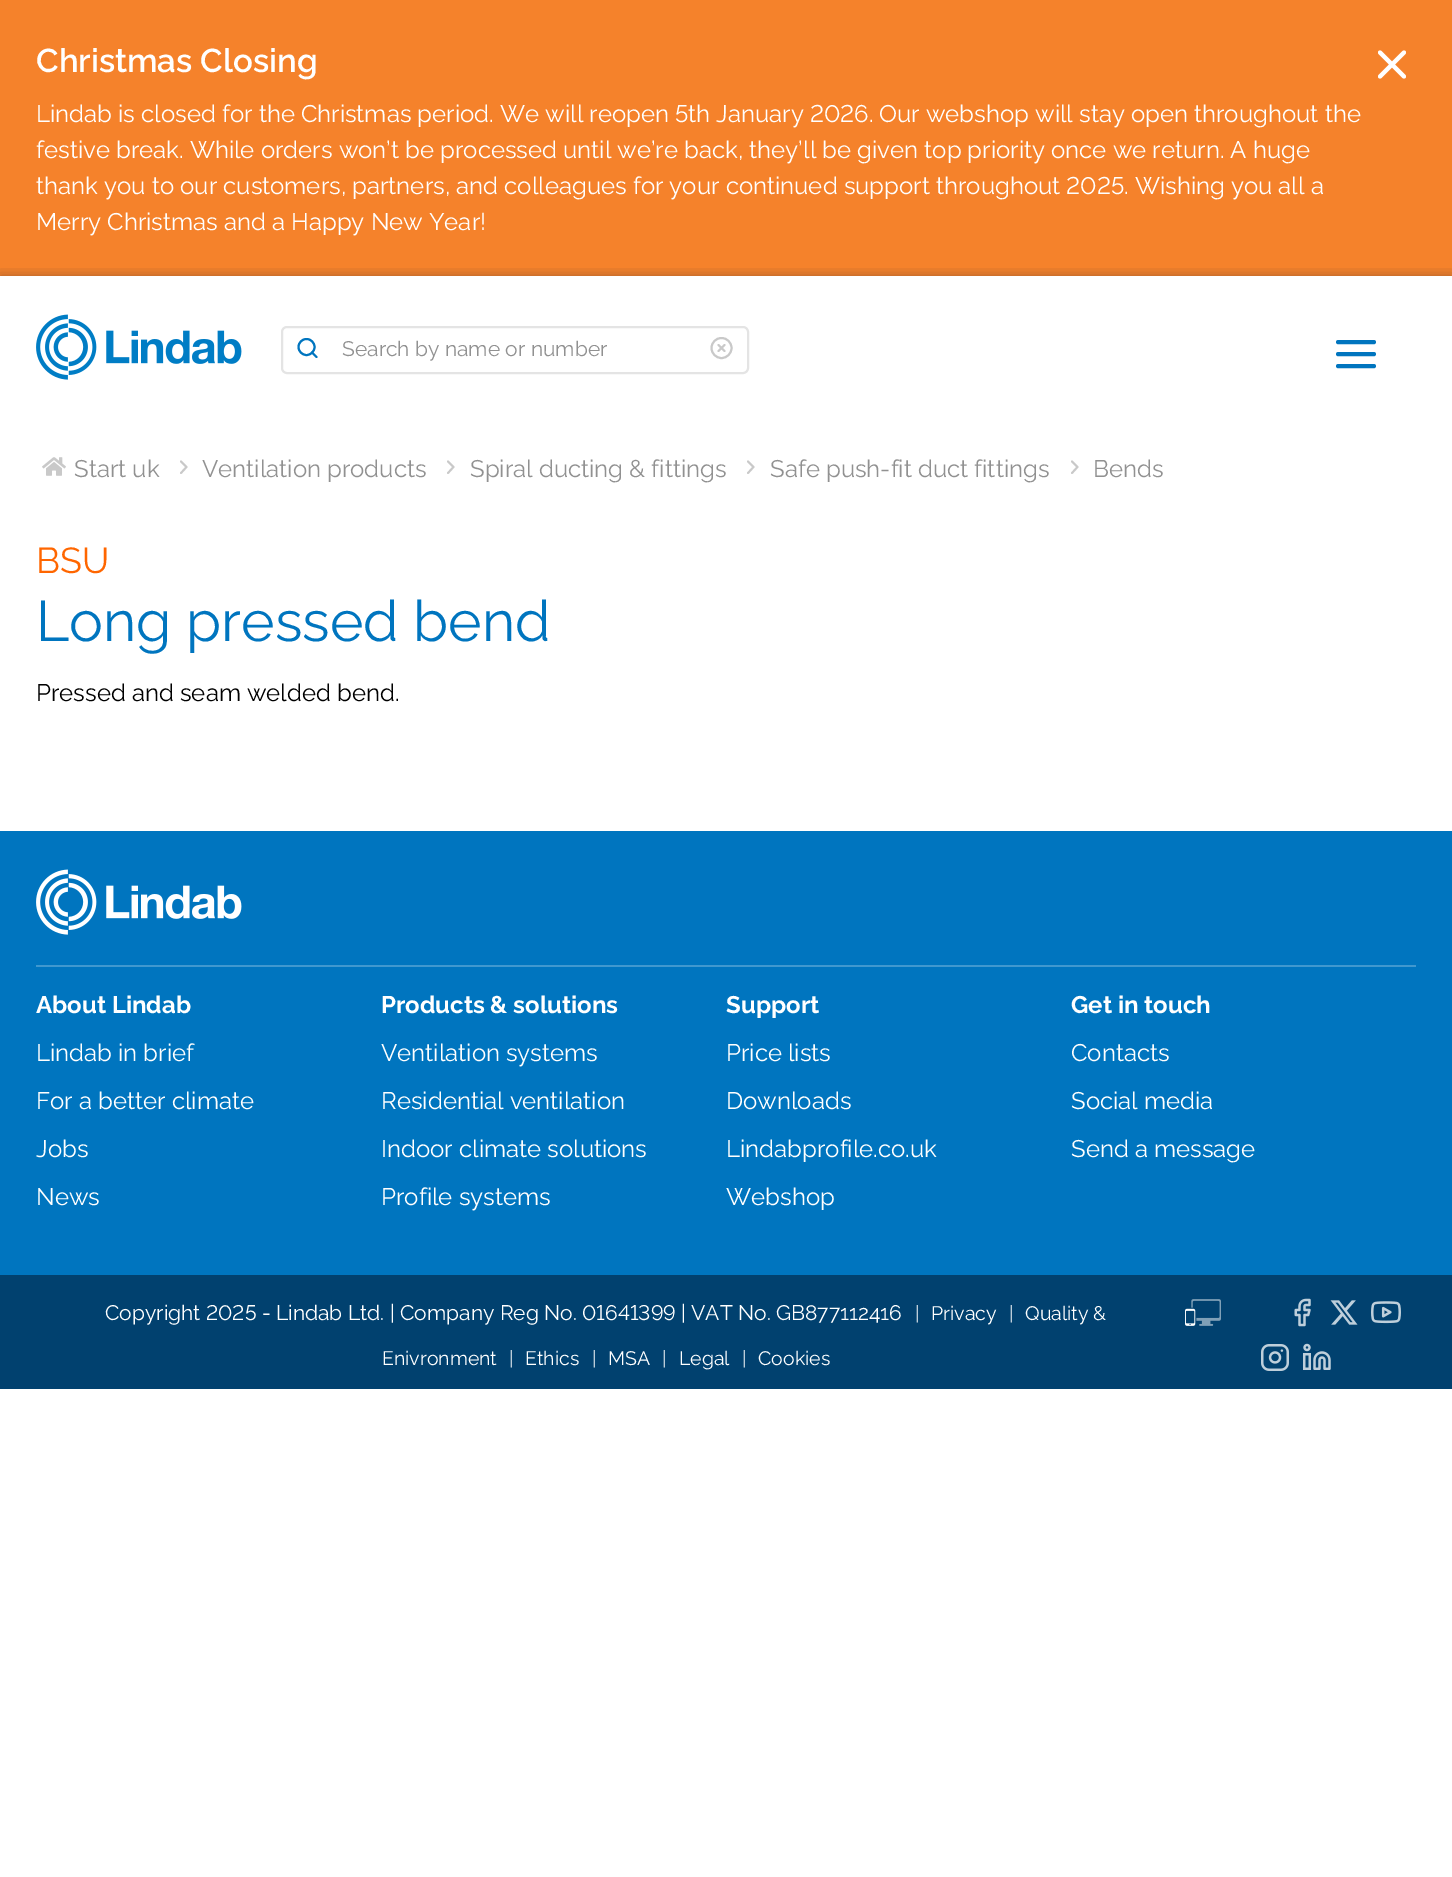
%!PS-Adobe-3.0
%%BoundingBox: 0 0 1452 1877
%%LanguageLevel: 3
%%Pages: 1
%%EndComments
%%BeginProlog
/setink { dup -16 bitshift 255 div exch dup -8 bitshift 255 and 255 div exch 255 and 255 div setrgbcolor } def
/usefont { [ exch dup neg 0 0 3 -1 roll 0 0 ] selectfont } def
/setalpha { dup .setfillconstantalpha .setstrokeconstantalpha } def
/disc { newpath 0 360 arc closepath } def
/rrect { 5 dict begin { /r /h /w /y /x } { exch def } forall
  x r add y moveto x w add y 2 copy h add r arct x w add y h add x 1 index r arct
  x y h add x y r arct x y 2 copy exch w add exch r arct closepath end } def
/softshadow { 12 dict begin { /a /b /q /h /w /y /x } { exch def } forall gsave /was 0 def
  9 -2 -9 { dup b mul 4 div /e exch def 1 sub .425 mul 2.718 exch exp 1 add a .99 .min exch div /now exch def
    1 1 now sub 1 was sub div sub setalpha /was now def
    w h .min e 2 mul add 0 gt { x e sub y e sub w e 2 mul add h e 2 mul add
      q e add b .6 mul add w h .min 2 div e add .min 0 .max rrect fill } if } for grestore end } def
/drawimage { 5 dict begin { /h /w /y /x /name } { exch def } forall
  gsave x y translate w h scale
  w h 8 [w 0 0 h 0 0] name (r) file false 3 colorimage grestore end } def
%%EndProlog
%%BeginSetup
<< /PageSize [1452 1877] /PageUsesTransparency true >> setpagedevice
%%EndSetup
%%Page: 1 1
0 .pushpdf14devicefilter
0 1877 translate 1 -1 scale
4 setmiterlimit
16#FFFFFF setink
0 0 1452 1877 rectfill
16#F5822B setink
0 0 1452 276 rectfill
/Raleway-Thin 33 usefont
16#FFFFFF setink
36 72 moveto (Christmas Closing) show
/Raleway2-Thin 24 usefont
36 122 moveto (Lindab is closed for the Christmas period.) show
/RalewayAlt-Thin 24 usefont
500 122 moveto (We will reopen 5th January 2026.) show
/Raleway2-Thin 24 usefont
879 122 moveto (Our webshop will stay open throughout the) show
36 158 moveto (festive break. While orders won’t be processed until we’re back, they’ll be given top priority once we return. A huge) show
/RalewayAlt-Thin 24 usefont
36 194 moveto (thank you to our customers, partners, and colleagues for your continued support throughout 2025. Wishing you all a) show
/Raleway2-Thin 24 usefont
36 230 moveto (Merry Christmas and a Happy New Year!) show
4 setlinewidth
1 setlinecap
1 setlinejoin
1404 52.5 moveto 1380 76.5 lineto 1380 52.5 moveto 1404 76.5 lineto stroke
gsave
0 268 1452 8 rectclip
16#2A2A2A setink
0 276 1452 144 0 6 0.2 softshadow
0 276 1452 144 0 6 0.2 softshadow
grestore
(img1.raw) 36 314 206 66 drawimage
16#E4E4E4 setink
2 setlinewidth
0 setlinecap
0 setlinejoin
282 327 466 46 5 rrect stroke
16#0075BF setink
306.5 347 8 disc stroke
1 setlinecap
1 setlinejoin
316.5 357 moveto 312 352.5 lineto stroke
/Raleway2-Thin 21 usefont
16#919191 setink
342 356 moveto (Search by name or number) show
16#C9C9C9 setink
0 setlinecap
0 setlinejoin
721.5 348 10 disc stroke
1 setlinecap
1 setlinejoin
724.5 345 moveto 718.5 351 lineto 718.5 345 moveto 724.5 351 lineto stroke
16#0075BF setink
4 setlinewidth
1338 354 moveto 1374 354 lineto 1338 342 moveto 1374 342 lineto 1338 366 moveto 1374 366 lineto stroke
16#FFFFFF setink
0 420 1452 11 rectfill
(img2.raw) 42 457 24 19 drawimage
/Raleway2-Thin 24 usefont
16#919191 setink
74 477 moveto (Start uk) show
16#C9C9C9 setink
1.9 setlinewidth
181 473 moveto 186.5 467 lineto 181 461.5 lineto stroke
16#919191 setink
202 477 moveto (Ventilation products) show
16#C9C9C9 setink
448 473 moveto 453.5 467 lineto 448 461.5 lineto stroke
16#919191 setink
470 477 moveto (Spiral ducting & fittings) show
16#C9C9C9 setink
748 473 moveto 753.5 467 lineto 748 461.5 lineto stroke
16#919191 setink
770 477 moveto (Safe push-fit duct fittings) show
16#C9C9C9 setink
1072 473 moveto 1077.5 467 lineto 1072 461.5 lineto stroke
16#919191 setink
1093 477 moveto (Bends) show
/Raleway2-Thin 36 usefont
16#FF6600 setink
36 573 moveto (BSU) show
/Raleway2-Thin 57 usefont
16#0075BF setink
36 641 moveto (Long pressed bend) show
/Raleway2-Thin 24 usefont
16#000000 setink
36 701 moveto (Pressed and seam welded bend.) show
16#0075BF setink
0 831 1452 444 rectfill
(img3.raw) 36 869 206 66 drawimage
16#4098CF setink
36 965 1380 2 rectfill
/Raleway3-Thin 24 usefont
16#FFFFFF setink
36 1013 moveto (About Lindab) show
/Raleway2-Thin 24 usefont
[
    [(Lindab in brief) 36 1061]
    [(For a better climate) 36 1109]
    [(Jobs) 36 1157]
    [(News) 36 1205]
] { aload pop moveto show } forall
/Raleway3-Thin 24 usefont
381 1013 moveto (Products & solutions) show
/Raleway2-Thin 24 usefont
[
    [(Ventilation systems) 381 1061]
    [(Residential ventilation) 381 1109]
    [(Indoor climate solutions) 381 1157]
    [(Profile systems) 381 1205]
] { aload pop moveto show } forall
/Raleway3-Thin 24 usefont
726 1013 moveto (Support) show
/Raleway2-Thin 24 usefont
[
    [(Price lists) 726 1061]
    [(Downloads) 726 1109]
    [(Lindabprofile.co.uk) 726 1157]
    [(Webshop) 726 1205]
] { aload pop moveto show } forall
/Raleway3-Thin 24 usefont
1071 1013 moveto (Get in touch) show
/Raleway2-Thin 24 usefont
[
    [(Contacts) 1071 1061]
    [(Social media) 1071 1109]
    [(Send a message) 1071 1157]
] { aload pop moveto show } forall
16#01416F setink
0 1275 1452 114 rectfill
/RalewayAlt-Thin 21 usefont
16#FFFFFF setink
105 1320 moveto (Copyright 2025 - Lindab Ltd.) show
/Raleway2-Thin 21 usefont
390 1320 moveto (|) show
/RalewayAlt-Thin 21 usefont
400 1320 moveto (Company Reg No. 01641399) show
/Raleway2-Thin 21 usefont
681 1320 moveto (| VAT No. GB877112416) show
/Raleway2-Thin 19.5 usefont
[
    [(|) 915 1320]
    [(Privacy) 931 1320]
    [(|) 1009 1320]
    [(Quality &) 1025 1320]
    [(Enivronment) 382 1365]
    [(|) 509 1365]
    [(Ethics) 525 1365]
    [(|) 592 1365]
    [(MSA) 608 1365]
    [(|) 662 1365]
    [(Legal) 679 1365]
    [(|) 742 1365]
    [(Cookies) 758 1365]
] { aload pop moveto show } forall
(img4.raw) 1185 1299 36 27 drawimage
(img5.raw) 1294 1298 17 29 drawimage
(img6.raw) 1330 1300 28 25 drawimage
(img7.raw) 1371 1301 30 23 drawimage
(img8.raw) 1261 1344 28 27 drawimage
(img9.raw) 1303 1343 28 27 drawimage
.poppdf14devicefilter showpage
%%EOF
